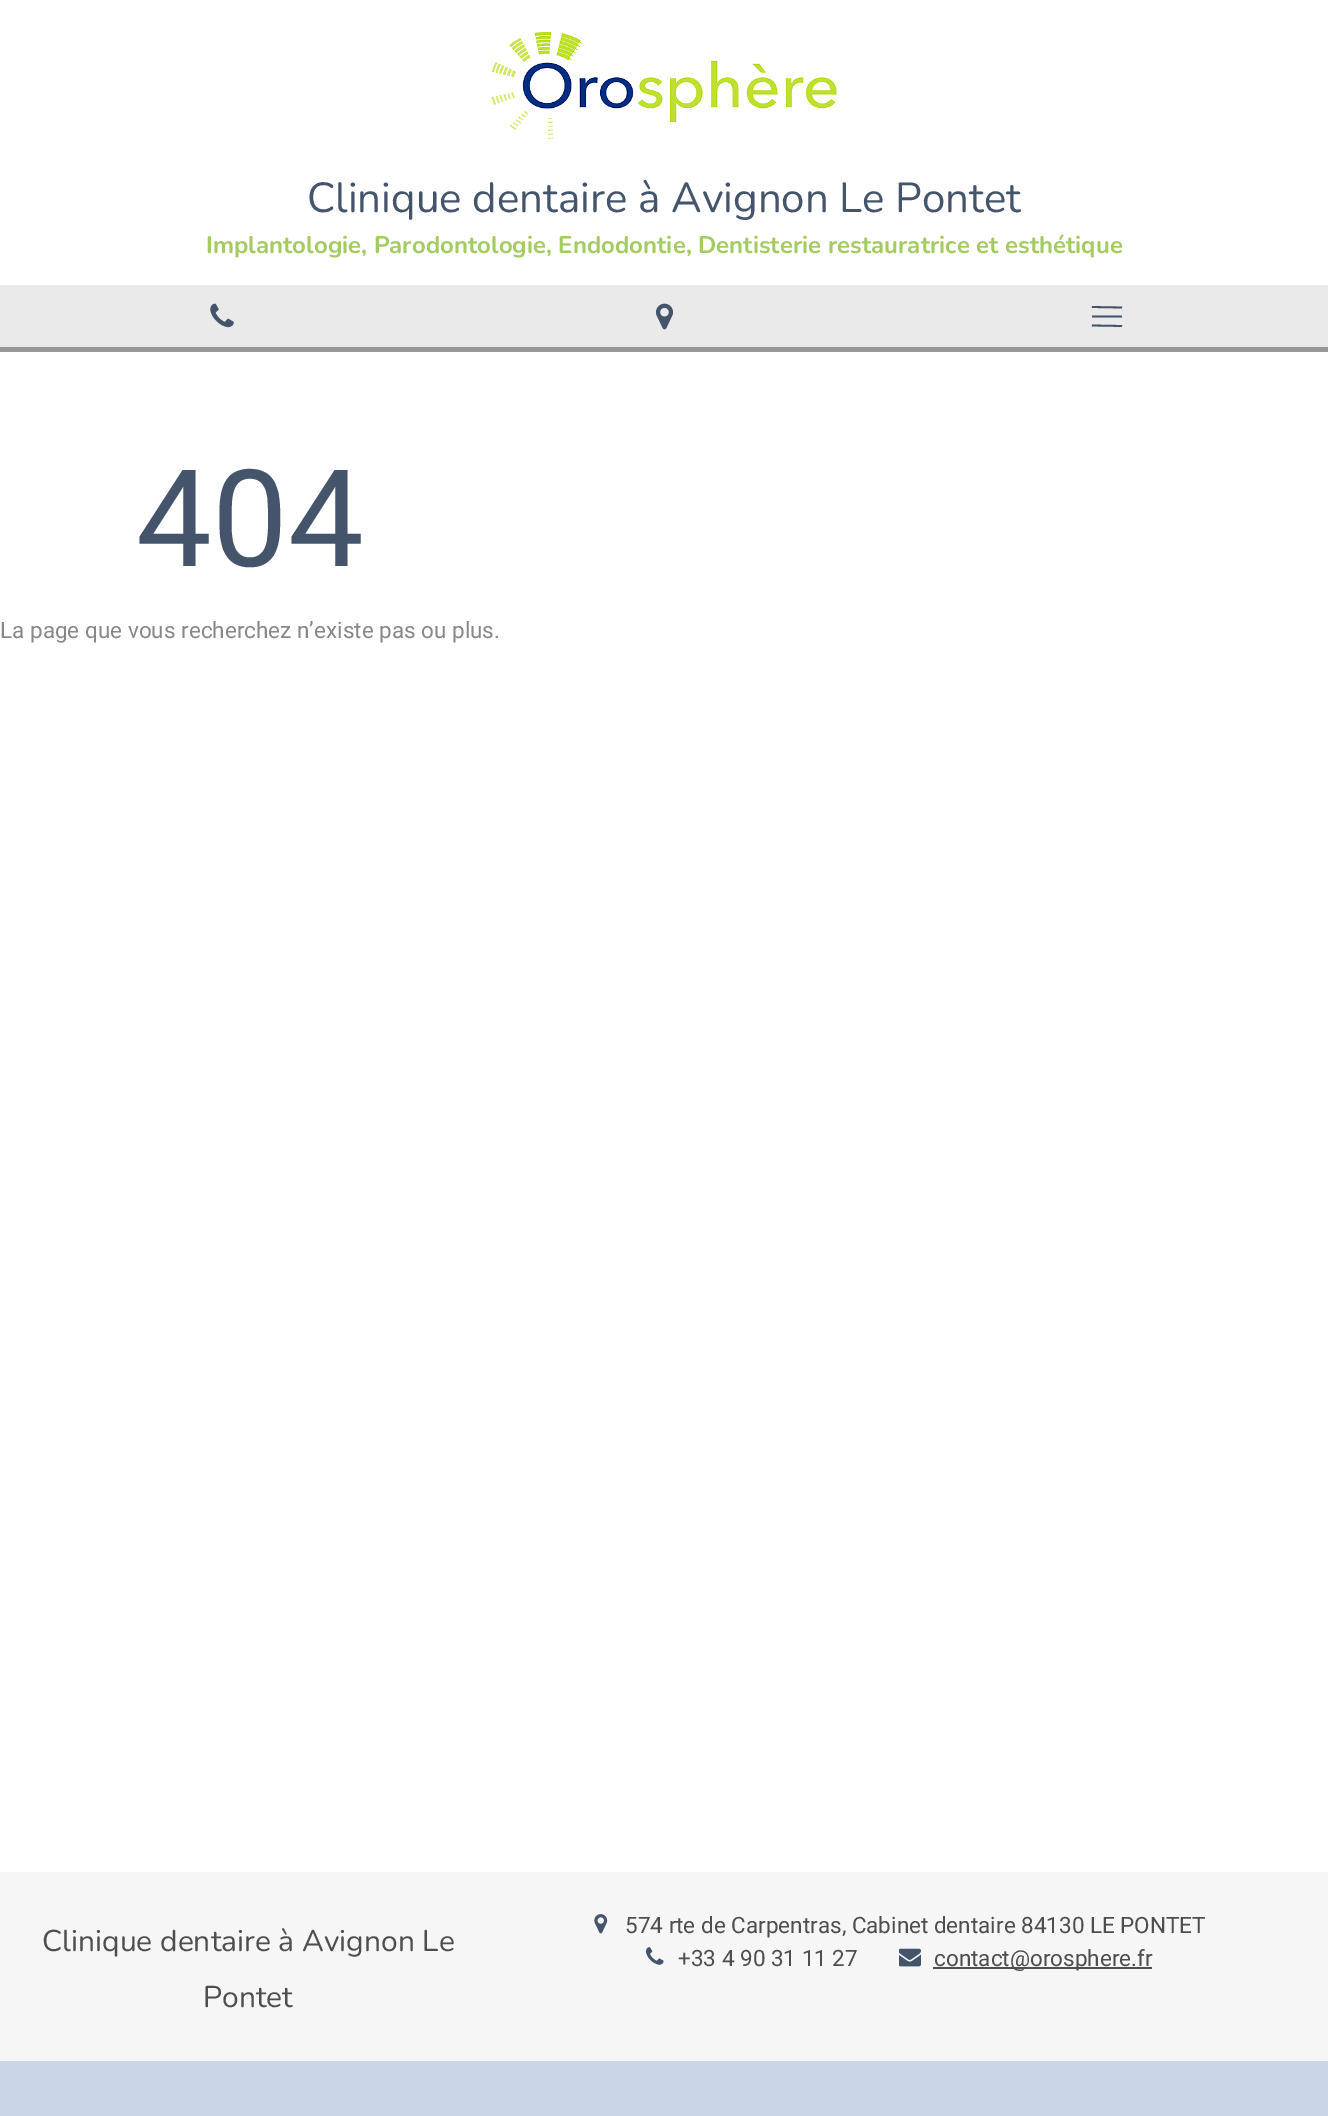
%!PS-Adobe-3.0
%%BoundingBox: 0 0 1328 2116
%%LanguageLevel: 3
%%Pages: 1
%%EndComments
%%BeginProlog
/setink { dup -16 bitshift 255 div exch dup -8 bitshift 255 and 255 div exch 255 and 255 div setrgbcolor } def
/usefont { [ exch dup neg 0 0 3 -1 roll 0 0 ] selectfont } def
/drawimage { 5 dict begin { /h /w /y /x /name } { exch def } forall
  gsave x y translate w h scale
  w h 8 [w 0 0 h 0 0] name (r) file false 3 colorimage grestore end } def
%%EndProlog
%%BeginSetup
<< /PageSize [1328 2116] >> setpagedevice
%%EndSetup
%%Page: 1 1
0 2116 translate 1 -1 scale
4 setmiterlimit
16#FFFFFF setink
0 0 1328 2116 rectfill
(img1.raw) 491 32 346 107 drawimage
/Nunito-Regular 42 usefont
16#44546B setink
307 212 moveto (Clinique dentaire à Avignon Le Pontet) show
/Nunito-Bold 24 usefont
16#A4CB60 setink
206 253 moveto (Implantologie, Parodontologie, Endodontie, Dentisterie restauratrice et esthétique) show
16#EAEAEA setink
0 285 1328 62 rectfill
(img2.raw) 210 303 24 25 drawimage
(img3.raw) 655 303 19 27 drawimage
16#44546B setink
1.8 setlinewidth
1092 316.5 moveto 1122 316.5 lineto 1092 307 moveto 1122 307.5 lineto 1092 325.5 moveto 1122 326 lineto stroke
16#979797 setink
0 347 1328 5 rectfill
/Roboto-Regular 135 usefont
16#44546B setink
136 566 moveto (404) show
/Roboto-Regular 22.5 usefont
16#888888 setink
0 638 moveto (La page que vous recherchez n’existe pas ou plus.) show
16#F6F6F6 setink
0 1872 1328 189 rectfill
/Nunito-Regular 30 usefont
16#4E4E4E setink
42 1951 moveto (Clinique dentaire à Avignon Le) show
203 2007 moveto (Pontet) show
(img4.raw) 594 1914 14 20 drawimage
/Roboto-Regular 22.5 usefont
625 1933 moveto (574 rte de Carpentras, Cabinet dentaire 84130 LE PONTET) show
(img5.raw) 645 1947 19 18 drawimage
678 1966 moveto (+33 4 90 31 11 27) show
(img6.raw) 899 1948 22 19 drawimage
933 1967 219 2 rectfill
934 1966 moveto (contact@orosphere.fr) show
16#CAD5E8 setink
0 2061 1328 55 rectfill
showpage
%%EOF
